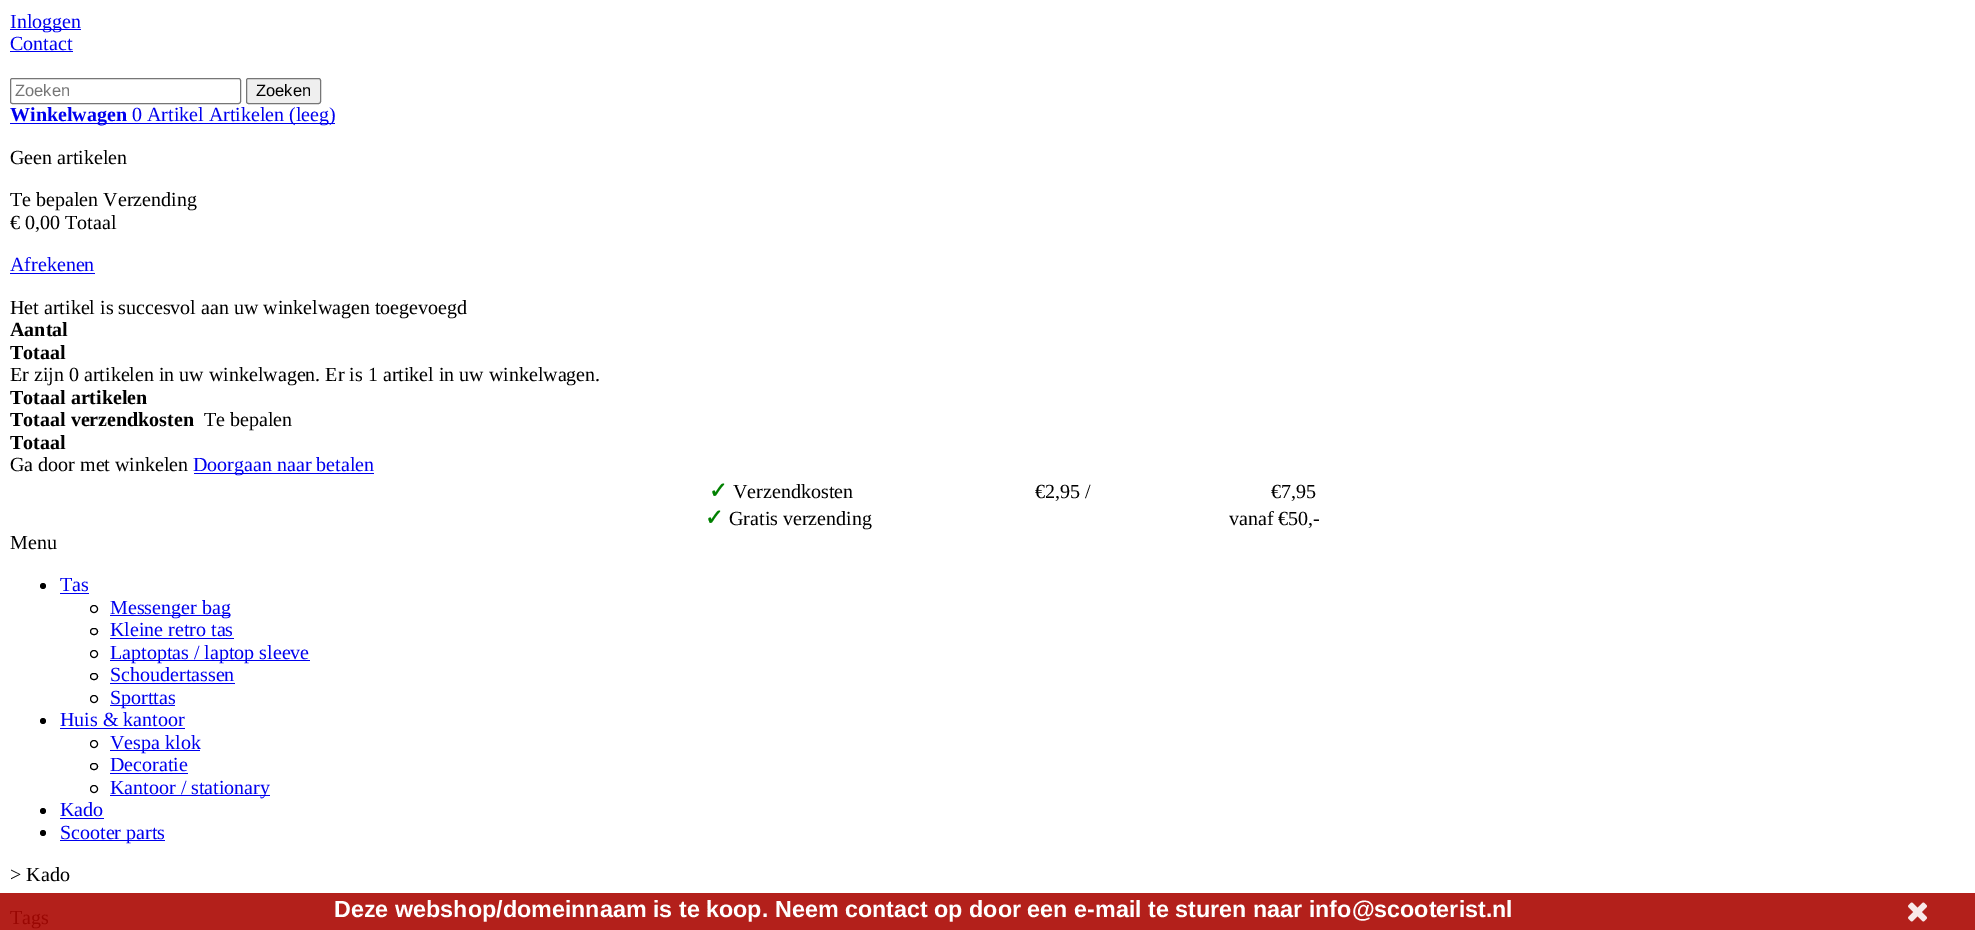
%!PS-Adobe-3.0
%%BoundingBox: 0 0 1975 930
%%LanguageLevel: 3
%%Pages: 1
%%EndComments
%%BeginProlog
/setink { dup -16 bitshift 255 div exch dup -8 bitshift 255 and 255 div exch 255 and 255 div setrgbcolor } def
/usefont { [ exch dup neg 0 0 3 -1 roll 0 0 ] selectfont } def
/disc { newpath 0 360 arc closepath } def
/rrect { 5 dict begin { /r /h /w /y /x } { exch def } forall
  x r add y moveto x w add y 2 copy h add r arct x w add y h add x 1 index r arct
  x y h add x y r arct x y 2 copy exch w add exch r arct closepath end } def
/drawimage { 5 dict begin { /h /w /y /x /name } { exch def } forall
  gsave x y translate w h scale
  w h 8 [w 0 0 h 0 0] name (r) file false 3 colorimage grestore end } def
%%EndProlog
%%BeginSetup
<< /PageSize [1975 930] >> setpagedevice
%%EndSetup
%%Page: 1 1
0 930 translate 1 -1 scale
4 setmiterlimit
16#FFFFFF setink
0 0 1975 930 rectfill
16#B3201B setink
0 893 1975 37 rectfill
16#0000EE setink
10 29 71 1 rectfill
/LiberationSerif-Regular 20 usefont
10 28 moveto (Inloggen) show
10 50 moveto (Contact) show
10 51 63 1 rectfill
16#767676 setink
10.5 78.5 230 25 2 rrect stroke
/LiberationSans-Regular 16.5 usefont
16#757575 setink
15 96 moveto (Zoeken) show
16#EFEFEF setink
246.5 78.5 74 25 2 rrect gsave fill grestore
16#767676 setink
stroke
16#000000 setink
256 96 moveto (Zoeken) show
16#0000EE setink
10 123 116 1 rectfill
/LiberationSerif-Bold 20 usefont
10 121 moveto (Winkelwagen) show
126 123 209 1 rectfill
/LiberationSerif-Regular 20 usefont
132 121 moveto (0 Artikel Artikelen \(leeg\)) show
16#000000 setink
[
    [(Geen artikelen) 10 164]
    [(Te bepalen Verzending) 10 206]
    [(€ 0,00 Totaal) 10 229]
] { aload pop moveto show } forall
16#0000EE setink
10 271 moveto (Afrekenen) show
10 273 85 1 rectfill
16#000000 setink
10 314 moveto (Het artikel is succesvol aan uw winkelwagen toegevoegd) show
/LiberationSerif-Bold 20 usefont
10 336 moveto (Aantal) show
10 359 moveto (Totaal) show
/LiberationSerif-Regular 20 usefont
10 381 moveto (Er zijn 0 artikelen in uw winkelwagen. Er is 1 artikel in uw winkelwagen.) show
/LiberationSerif-Bold 20 usefont
10 404 moveto (Totaal artikelen) show
10 426 moveto (Totaal verzendkosten) show
/LiberationSerif-Regular 20 usefont
204 426 moveto (Te bepalen) show
/LiberationSerif-Bold 20 usefont
10 449 moveto (Totaal) show
/LiberationSerif-Regular 20 usefont
10 471 moveto (Ga door met winkelen) show
16#0000EE setink
194 473 180 1 rectfill
193 471 moveto (Doorgaan naar betalen) show
/DejaVuSans-Bold 22 usefont
16#008000 setink
709 498 moveto (✓) show
/LiberationSerif-Regular 20 usefont
16#000000 setink
[
    [(Verzendkosten) 733 498]
    [(€2,95 /) 1035 498]
    [(€7,95) 1271 498]
] { aload pop moveto show } forall
/DejaVuSans-Bold 22 usefont
16#008000 setink
705 525 moveto (✓) show
/LiberationSerif-Regular 20 usefont
16#000000 setink
[
    [(Gratis verzending) 729 525]
    [(vanaf €50,-) 1229 525]
    [(Menu) 10 549]
] { aload pop moveto show } forall
43 586 3 disc fill
16#0000EE setink
60 591 moveto (Tas) show
60 593 29 1 rectfill
16#000000 setink
94 609 3.5 disc stroke
16#0000EE setink
110 615 120 1 rectfill
110 614 moveto (Messenger bag) show
16#000000 setink
90.5 628.5 7 6 3 rrect stroke
16#0000EE setink
110 636 moveto (Kleine retro tas) show
110 638 124 1 rectfill
16#000000 setink
94 654 3.5 disc stroke
16#0000EE setink
110 660 200 1 rectfill
110 659 moveto (Laptoptas / laptop sleeve) show
16#000000 setink
90.5 673.5 7 6 3 rrect stroke
16#0000EE setink
110 681 moveto (Schoudertassen) show
110 683 125 1 rectfill
16#000000 setink
94 699 3.5 disc stroke
16#0000EE setink
110 705 65 1 rectfill
110 704 moveto (Sporttas) show
16#000000 setink
43 721 3 disc fill
16#0000EE setink
60 726 moveto (Huis & kantoor) show
60 728 125 1 rectfill
16#000000 setink
94 744 3.5 disc stroke
16#0000EE setink
110 750 90 1 rectfill
110 749 moveto (Vespa klok) show
16#000000 setink
90.5 763.5 7 6 3 rrect stroke
16#0000EE setink
110 771 moveto (Decoratie) show
110 773 78 1 rectfill
16#000000 setink
94 789 3.5 disc stroke
16#0000EE setink
110 795 160 1 rectfill
110 794 moveto (Kantoor / stationary) show
16#000000 setink
43 811 3 disc fill
16#0000EE setink
60 816 moveto (Kado) show
60 818 44 1 rectfill
16#000000 setink
43 833 3 disc fill
16#0000EE setink
60 840 105 1 rectfill
60 839 moveto (Scooter parts) show
16#000000 setink
10 881 moveto (> Kado) show
16#9A0602 setink
10 924 moveto (Tags) show
/LiberationSans-Bold 23.33 usefont
16#FFFFFF setink
334 917 moveto (Deze webshop/domeinnaam is te koop. Neem contact op door een e-mail te sturen naar info@scooterist.nl) show
(img1.raw) 1908 902 19 20 drawimage
showpage
%%EOF
